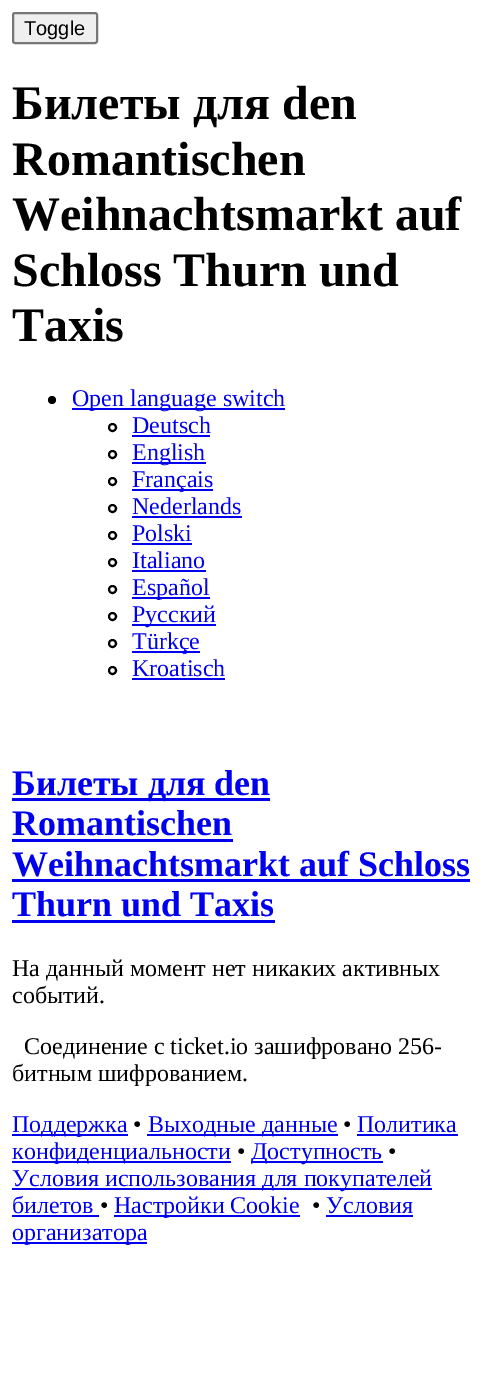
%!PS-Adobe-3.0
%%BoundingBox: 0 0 490 1375
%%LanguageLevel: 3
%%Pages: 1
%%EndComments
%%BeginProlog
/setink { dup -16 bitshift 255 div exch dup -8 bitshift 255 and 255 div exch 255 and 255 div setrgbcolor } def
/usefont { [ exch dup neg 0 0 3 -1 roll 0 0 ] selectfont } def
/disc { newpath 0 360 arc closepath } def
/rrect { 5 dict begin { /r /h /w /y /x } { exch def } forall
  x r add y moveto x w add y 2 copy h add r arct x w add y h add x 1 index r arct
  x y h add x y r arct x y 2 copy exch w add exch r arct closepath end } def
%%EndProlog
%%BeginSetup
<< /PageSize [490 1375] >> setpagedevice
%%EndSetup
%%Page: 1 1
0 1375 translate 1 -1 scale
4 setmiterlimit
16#FFFFFF setink
0 0 490 1375 rectfill
16#EFEFEF setink
13 13 84 30 2 rrect gsave fill grestore
16#767676 setink
2 setlinewidth
stroke
/LiberationSans-Regular 20 usefont
16#000000 setink
24 35 moveto (Toggle) show
/LiberationSerif-Bold 48 usefont
[
    [(Билеты для den) 12 119]
    [(Romantischen) 12 175]
    [(Weihnachtsmarkt auf) 12 230]
    [(Schloss Thurn und) 12 286]
    [(Taxis) 12 341]
] { aload pop moveto show } forall
52 400 4 disc fill
16#0000EE setink
72 408 213 2 rectfill
/LiberationSerif-Regular 24 usefont
72 406 moveto (Open language switch) show
16#000000 setink
112.5 427.5 3.5 disc stroke
16#0000EE setink
132 433 moveto (Deutsch) show
132 435 78 2 rectfill
16#000000 setink
112.5 454.5 3.5 disc stroke
16#0000EE setink
132 462 74 2 rectfill
132 460 moveto (English) show
16#000000 setink
112.5 481.5 3.5 disc stroke
16#0000EE setink
132 489 81 2 rectfill
132 487 moveto (Français) show
16#000000 setink
112.5 508.5 3.5 disc stroke
16#0000EE setink
132 514 moveto (Nederlands) show
132 516 110 2 rectfill
16#000000 setink
112.5 535.5 3.5 disc stroke
16#0000EE setink
132 541 moveto (Polski) show
132 543 60 2 rectfill
16#000000 setink
112.5 562.5 3.5 disc stroke
16#0000EE setink
132 568 moveto (Italiano) show
132 570 74 2 rectfill
16#000000 setink
112.5 589.5 3.5 disc stroke
16#0000EE setink
132 597 78 2 rectfill
132 595 moveto (Español) show
16#000000 setink
112.5 616.5 3.5 disc stroke
16#0000EE setink
132 624 84 2 rectfill
132 622 moveto (Русский) show
16#000000 setink
112.5 643.5 3.5 disc stroke
16#0000EE setink
132 651 68 2 rectfill
132 649 moveto (Türkçe) show
16#000000 setink
112.5 670.5 3.5 disc stroke
16#0000EE setink
132 676 moveto (Kroatisch) show
132 678 93 2 rectfill
12 798 258 3 rectfill
/LiberationSerif-Bold 36 usefont
12 795 moveto (Билеты для den) show
12 835 moveto (Romantischen) show
12 839 221 3 rectfill
12 876 moveto (Weihnachtsmarkt auf Schloss) show
12 879 458 3 rectfill
12 916 moveto (Thurn und Taxis) show
12 920 263 3 rectfill
/LiberationSerif-Regular 24 usefont
16#000000 setink
[
    [(На данный момент нет никаких активных) 12 976]
    [(событий.) 12 1003]
    [(Соединение с ticket.io зашифровано 256-) 24 1054]
    [(битным шифрованием.) 12 1081]
] { aload pop moveto show } forall
16#0000EE setink
12 1134 116 2 rectfill
12 1132 moveto (Поддержка) show
16#000000 setink
133 1132 moveto (•) show
16#0000EE setink
147 1134 191 2 rectfill
148 1132 moveto (Выходные данные) show
16#000000 setink
343 1132 moveto (•) show
16#0000EE setink
357 1132 moveto (Политика) show
357 1134 101 2 rectfill
12 1161 219 2 rectfill
12 1159 moveto (конфиденциальности) show
16#000000 setink
237 1159 moveto (•) show
16#0000EE setink
251 1161 132 2 rectfill
251 1159 moveto (Доступность) show
16#000000 setink
388 1159 moveto (•) show
16#0000EE setink
12 1188 420 2 rectfill
12 1186 moveto (Условия использования для покупателей) show
12 1213 moveto (билетов) show
12 1215 87 2 rectfill
16#000000 setink
100 1213 moveto (•) show
16#0000EE setink
114 1215 186 2 rectfill
114 1213 moveto (Настройки Cookie) show
16#000000 setink
312 1213 moveto (•) show
16#0000EE setink
326 1213 moveto (Условия) show
326 1215 87 2 rectfill
12 1242 135 2 rectfill
12 1240 moveto (организатора) show
showpage
%%EOF
